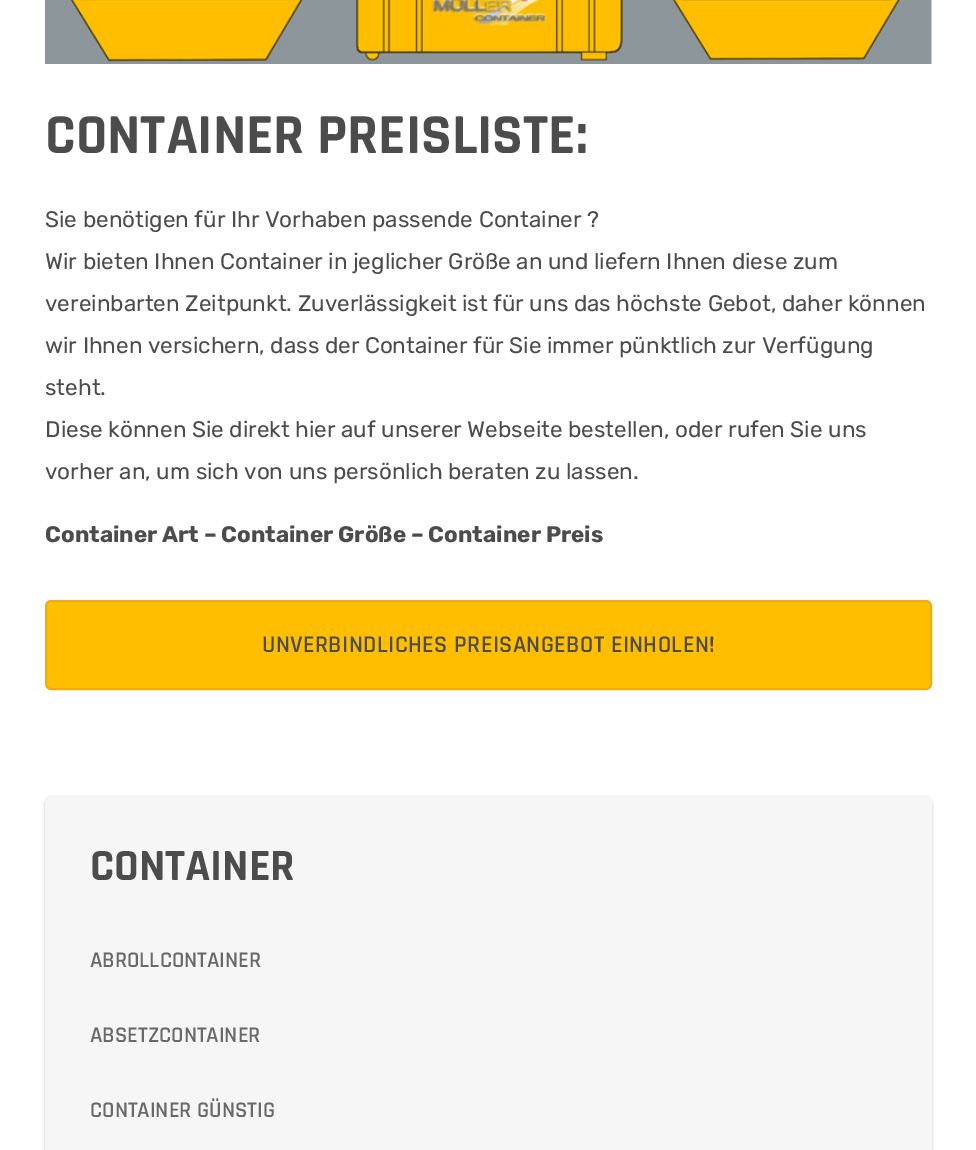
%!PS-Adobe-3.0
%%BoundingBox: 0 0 976 1150
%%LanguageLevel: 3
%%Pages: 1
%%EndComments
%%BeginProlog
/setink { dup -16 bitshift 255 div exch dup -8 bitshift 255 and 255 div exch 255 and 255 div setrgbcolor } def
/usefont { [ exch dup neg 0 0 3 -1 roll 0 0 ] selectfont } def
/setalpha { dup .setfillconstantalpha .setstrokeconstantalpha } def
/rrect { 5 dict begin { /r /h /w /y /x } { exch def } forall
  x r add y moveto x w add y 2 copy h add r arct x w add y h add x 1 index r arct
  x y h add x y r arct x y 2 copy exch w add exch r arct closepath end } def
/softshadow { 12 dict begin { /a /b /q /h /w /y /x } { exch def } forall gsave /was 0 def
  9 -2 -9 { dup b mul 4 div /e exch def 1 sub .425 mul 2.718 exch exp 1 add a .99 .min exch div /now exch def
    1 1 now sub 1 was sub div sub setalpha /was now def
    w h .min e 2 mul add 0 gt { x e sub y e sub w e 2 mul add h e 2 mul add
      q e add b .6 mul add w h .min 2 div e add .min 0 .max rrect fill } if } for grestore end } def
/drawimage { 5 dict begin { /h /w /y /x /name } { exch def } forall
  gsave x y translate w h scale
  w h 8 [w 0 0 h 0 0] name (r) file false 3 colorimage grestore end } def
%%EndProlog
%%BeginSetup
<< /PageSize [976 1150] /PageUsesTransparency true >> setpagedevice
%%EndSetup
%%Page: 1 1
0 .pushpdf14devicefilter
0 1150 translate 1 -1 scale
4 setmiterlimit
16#FFFFFF setink
0 0 976 1150 rectfill
(img1.raw) 45 0 887 64 drawimage
/Rajdhani-Bold 57 usefont
16#4C4C4C setink
45 153 moveto (CONTAINER PREISLISTE:) show
/Rubik-Regular 22.5 usefont
[
    [(Sie benötigen für Ihr Vorhaben passende Container ?) 45 227]
    [(Wir bieten Ihnen Container in jeglicher Größe an und liefern Ihnen diese zum) 45 269]
    [(vereinbarten Zeitpunkt. Zuverlässigkeit ist für uns das höchste Gebot, daher können) 45 311]
    [(wir Ihnen versichern, dass der Container für Sie immer pünktlich zur Verfügung) 45 353]
    [(steht.) 45 395]
    [(Diese können Sie direkt hier auf unserer Webseite bestellen, oder rufen Sie uns) 45 437]
    [(vorher an, um sich von uns persönlich beraten zu lassen.) 45 479]
] { aload pop moveto show } forall
/Rubik-Bold 22.5 usefont
45 542 moveto (Container Art – Container Größe – Container Preis) show
16#FFBE00 setink
46 601 885 88 5 rrect gsave fill grestore
16#EAAE17 setink
2 setlinewidth
stroke
/Rajdhani-SemiBold 24 usefont
16#4C4C4C setink
262 652 moveto 0.45 0 (UNVERBINDLICHES PREISANGEBOT EINHOLEN!) ashow
16#000000 setink
45 798 887 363 6 1.5 0.2 softshadow
16#F6F6F6 setink
45 795 887 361 6 rrect fill
/Rajdhani-Bold 45 usefont
16#4C4C4C setink
90 880 moveto (CONTAINER) show
/Rajdhani-SemiBold 22.5 usefont
16#696969 setink
[
    [(ABROLLCONTAINER) 90 967]
    [(ABSETZCONTAINER) 90 1042]
    [(CONTAINER GÜNSTIG) 90 1117]
] { aload pop moveto show } forall
.poppdf14devicefilter showpage
%%EOF
